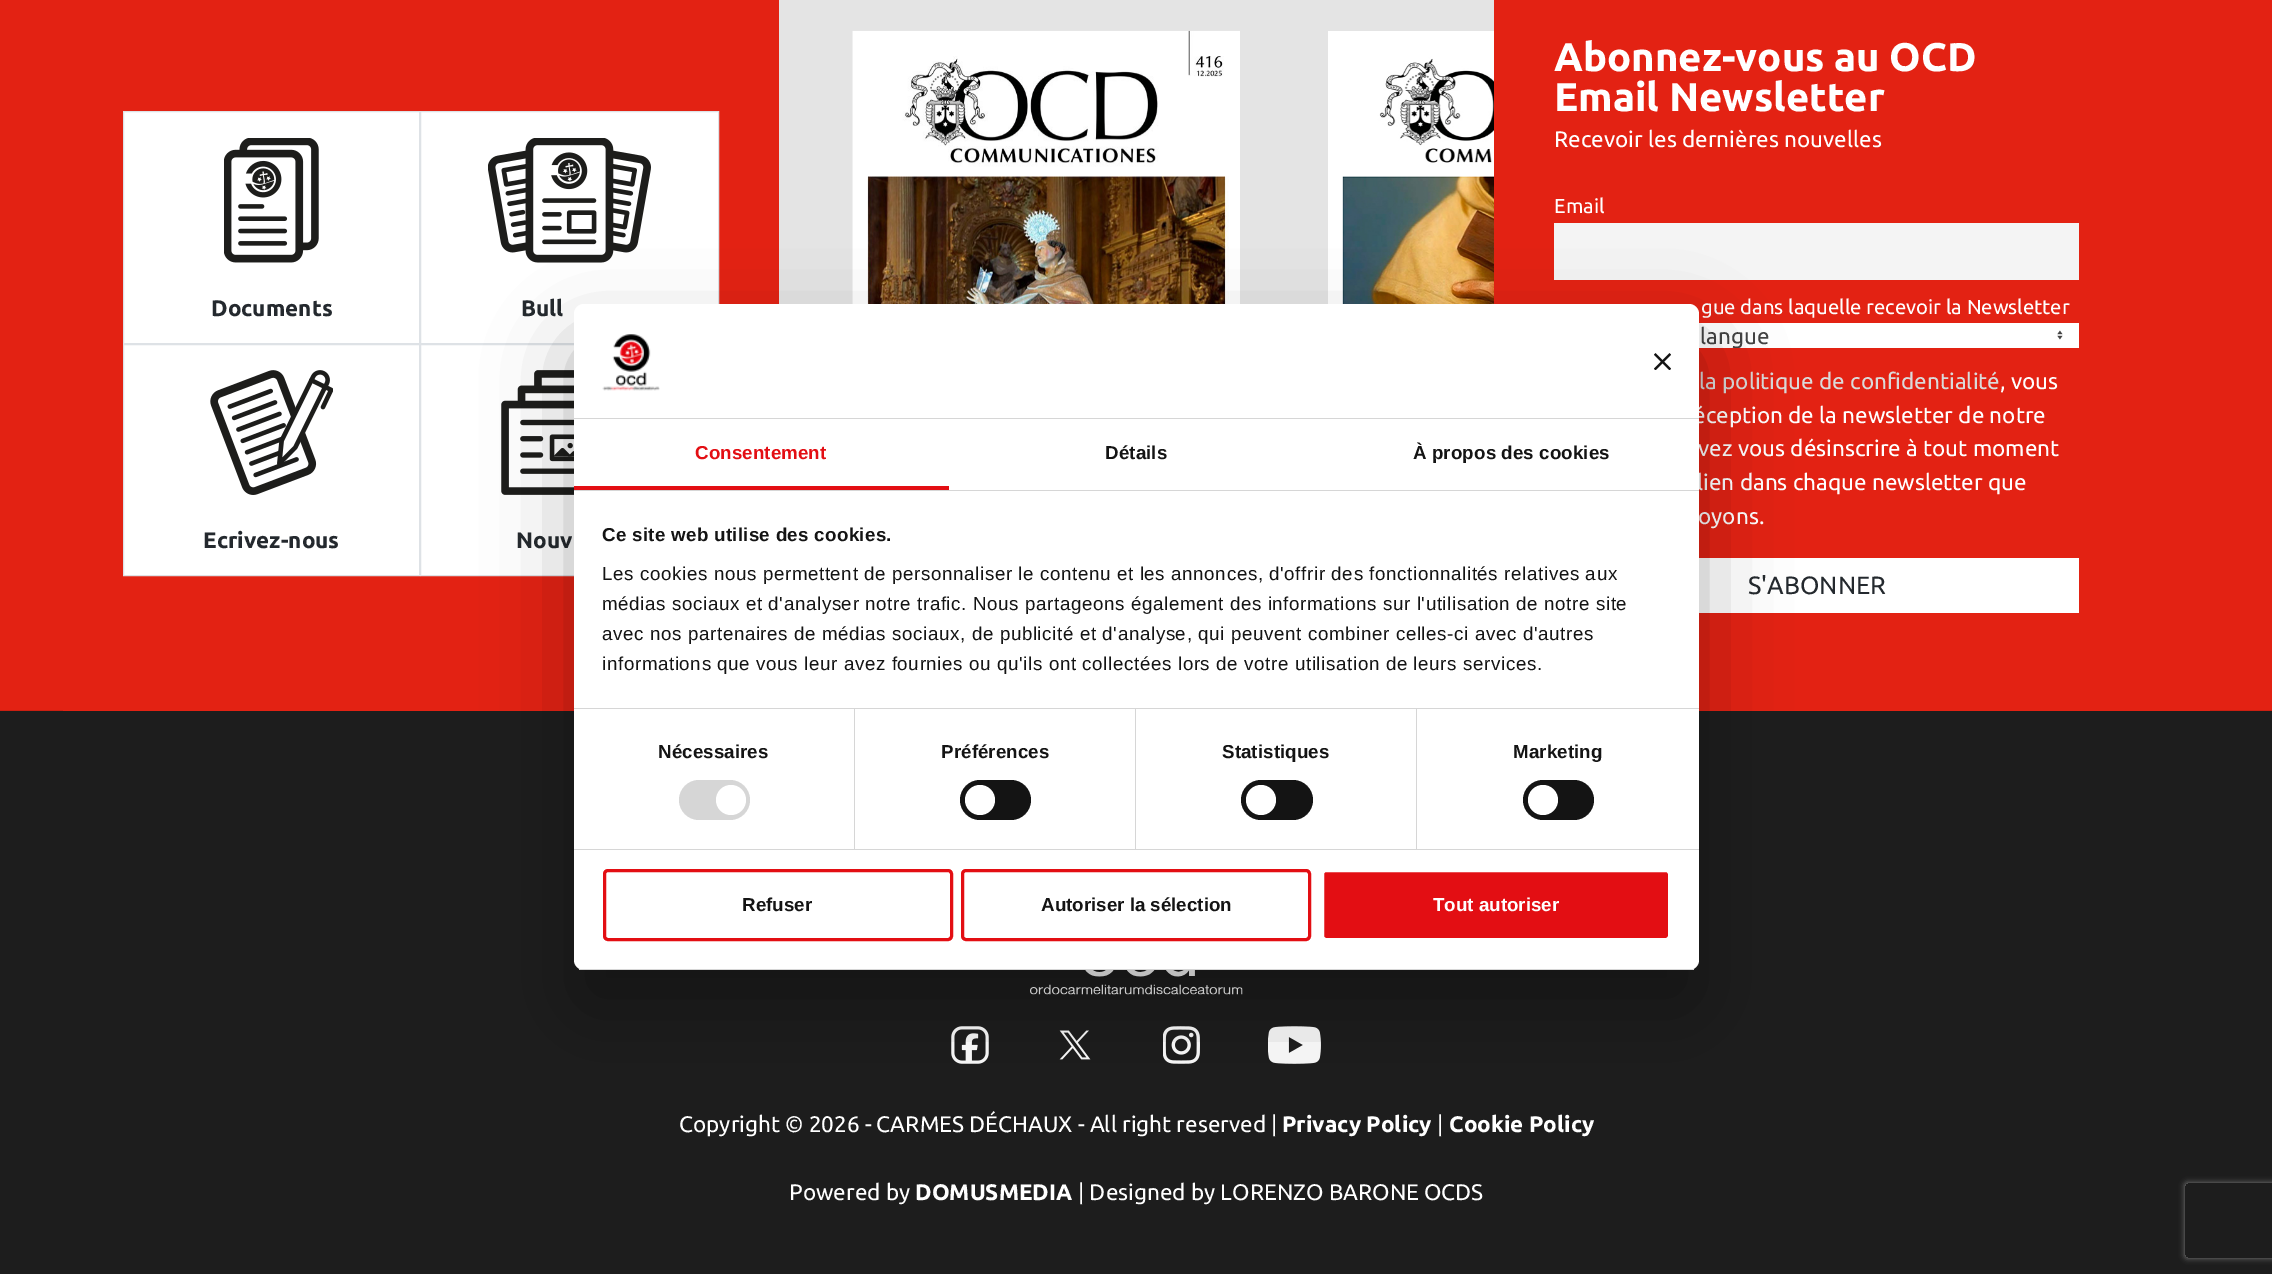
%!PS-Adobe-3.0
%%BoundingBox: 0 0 2272 1274
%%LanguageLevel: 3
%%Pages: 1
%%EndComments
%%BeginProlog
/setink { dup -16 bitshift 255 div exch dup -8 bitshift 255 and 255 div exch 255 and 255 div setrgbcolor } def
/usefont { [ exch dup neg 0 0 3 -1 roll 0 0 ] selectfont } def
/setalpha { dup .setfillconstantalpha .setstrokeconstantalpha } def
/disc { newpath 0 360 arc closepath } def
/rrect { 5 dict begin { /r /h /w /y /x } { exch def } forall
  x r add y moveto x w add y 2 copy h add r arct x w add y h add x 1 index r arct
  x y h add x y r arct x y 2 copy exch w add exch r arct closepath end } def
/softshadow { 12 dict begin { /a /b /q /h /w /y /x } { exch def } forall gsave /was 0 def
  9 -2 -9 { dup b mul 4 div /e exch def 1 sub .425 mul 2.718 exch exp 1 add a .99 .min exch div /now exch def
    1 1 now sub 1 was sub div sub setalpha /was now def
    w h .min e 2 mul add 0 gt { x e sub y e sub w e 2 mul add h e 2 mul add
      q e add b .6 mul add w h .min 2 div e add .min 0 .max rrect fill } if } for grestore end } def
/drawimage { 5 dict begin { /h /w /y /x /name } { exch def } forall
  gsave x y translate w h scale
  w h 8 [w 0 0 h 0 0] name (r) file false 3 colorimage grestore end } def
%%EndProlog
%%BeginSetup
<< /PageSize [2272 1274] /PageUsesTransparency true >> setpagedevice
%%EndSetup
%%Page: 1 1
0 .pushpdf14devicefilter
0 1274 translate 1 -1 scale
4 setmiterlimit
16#1D1D1D setink
0 0 2272 1274 rectfill
[
    [0 0 2272 710 16#E32213]
    [0 710 2272 1 16#CC1F11]
    [63 710 716 1 16#E32213]
] { aload pop setink rectfill } forall
16#FFFFFF setink
123.5 111.5 moveto 419.5 111.5 lineto 419.5 343.5 lineto 123.5 343.5 lineto closepath gsave fill grestore
16#DEE2E6 setink
stroke
(img1.raw) 224 138 95 125 drawimage
/Ubuntu-Bold 22.5 usefont
16#24292E setink
211 316 moveto (Documents) show
16#FFFFFF setink
420.5 111.5 moveto 718.5 111.5 lineto 718.5 343.5 lineto 420.5 343.5 lineto closepath gsave fill grestore
16#DEE2E6 setink
stroke
(img2.raw) 488 138 163 125 drawimage
16#24292E setink
521 316 moveto (Bull) show
16#FFFFFF setink
123.5 344.5 moveto 419.5 344.5 lineto 419.5 575.5 lineto 123.5 575.5 lineto closepath gsave fill grestore
16#DEE2E6 setink
stroke
(img3.raw) 210 370 123 125 drawimage
16#24292E setink
203 548 moveto (Ecrivez-nous) show
16#FFFFFF setink
421 345 153 230 rectfill
16#DEE2E6 setink
420.5 344.5 298 231 rectstroke
(img4.raw) 501 370 73 125 drawimage
16#24292E setink
516 548 moveto (Nouv) show
16#E4E4E4 setink
779 0 715 304 rectfill
(img5.raw) 852 30 388 274 drawimage
(img6.raw) 1328 31 166 273 drawimage
16#E32213 setink
1494 710 716 1 rectfill
/Ubuntu-Bold 40 usefont
16#FFFFFF setink
1554 71 moveto (Abonnez-vous au OCD) show
1554 111 moveto (Email Newsletter) show
/Ubuntu-Regular 22.5 usefont
1554 147 moveto (Recevoir les dernières nouvelles) show
/Ubuntu-Regular 20.25 usefont
1554 213 moveto (Email) show
16#F4F4F4 setink
1554 223 525 57 rectfill
16#FFFFFF setink
1701 314 moveto (gue dans laquelle recevoir la Newsletter) show
1699 323 380 25 rectfill
(img7.raw) 2057 330 6 10 drawimage
gsave
1566 323 513 25 rectclip
/Ubuntu-Regular 22.5 usefont
16#444444 setink
1700 344 moveto (langue) show
grestore
/Ubuntu-Regular 22.5 usefont
16#DADADA setink
1699 389 moveto (la politique de confidentialité) show
16#FFFFFF setink
[
    [(, vous) 2000 389]
    [(éception de la newsletter de notre) 1693 423]
    [(vez vous désinscrire à tout moment) 1698 456]
    [(lien dans chaque newsletter que) 1697 490]
    [(oyons.) 1698 524]
] { aload pop moveto show } forall
1699 558 380 55 rectfill
/Ubuntu-Regular 25 usefont
16#24292E setink
1748 594 moveto (S'ABONNER) show
(img8.raw) 1030 970 213 25 drawimage
(img9.raw) 951 1026 38 38 drawimage
(img10.raw) 1059 1030 32 30 drawimage
(img11.raw) 1163 1026 37 38 drawimage
(img12.raw) 1268 1026 53 38 drawimage
/Ubuntu-Regular 22.5 usefont
16#FFFFFF setink
679 1132 moveto (Copyright © 2026 - CARMES DÉCHAUX - All right reserved |) show
/Ubuntu-Bold 22.5 usefont
1282 1132 moveto (Privacy Policy) show
/Ubuntu-Regular 22.5 usefont
1437 1132 moveto (|) show
/Ubuntu-Bold 22.5 usefont
1449 1132 moveto (Cookie Policy) show
/Ubuntu-Regular 22.5 usefont
789 1200 moveto (Powered by) show
/Ubuntu-Bold 22.5 usefont
915 1200 moveto (DOMUSMEDIA) show
/Ubuntu-Regular 22.5 usefont
1078 1200 moveto (| Designed by LORENZO BARONE OCDS) show
16#000000 setink
574 344 1125 666 10 42.5 0.3 softshadow
16#FFFFFF setink
574 304 1125 666 10 rrect fill
16#D6D6D6 setink
574 418 1125 1 rectfill
(img13.raw) 602 334 58 57 drawimage
(img14.raw) 1654 353 17 17 drawimage
574 490 1125 1 rectfill
16#E30E13 setink
574 486 375 4 rectfill
/LiberationSans-Bold 18.75 usefont
695 459 moveto 0.1 0 (Consentement) ashow
16#141414 setink
1105 459 moveto 0.1 0 (Détails) ashow
1413 459 moveto 0.1 0 (À propos des cookies) ashow
16#D6D6D6 setink
574 708 1125 1 rectfill
16#141414 setink
602 541 moveto 0.3 0 (Ce site web utilise des cookies.) ashow
/LiberationSans-Regular 18.75 usefont
602 580 moveto 0.62 0 (Les cookies nous permettent de personnaliser le contenu et les annonces, d'offrir des fonctionnalités relatives aux) ashow
602 610 moveto 0.62 0 (médias sociaux et d'analyser notre trafic. Nous partageons également des informations sur l'utilisation de notre site) ashow
602 640 moveto 0.62 0 (avec nos partenaires de médias sociaux, de publicité et d'analyse, qui peuvent combiner celles-ci avec d'autres) ashow
602 670 moveto 0.62 0 (informations que vous leur avez fournies ou qu'ils ont collectées lors de votre utilisation de leurs services.) ashow
16#D6D6D6 setink
574 849 1125 1 rectfill
854 709 1 140 rectfill
/LiberationSans-Bold 18.75 usefont
16#141414 setink
658 758 moveto 0.1 0 (Nécessaires) ashow
16#D6D6D6 setink
679 780 71 40 20 rrect fill
16#FFFFFF setink
731 800 15 disc fill
16#D6D6D6 setink
1135 709 1 140 rectfill
16#141414 setink
941 758 moveto 0.1 0 (Préférences) ashow
960 780 71 40 20 rrect fill
16#FFFFFF setink
980 800 15 disc fill
16#D6D6D6 setink
1416 709 1 140 rectfill
16#141414 setink
1222 758 moveto 0.1 0 (Statistiques) ashow
1241 780 72 40 20 rrect fill
16#FFFFFF setink
1261 800 15 disc fill
16#141414 setink
1513 758 moveto 0.1 0 (Marketing) ashow
1523 780 71 40 20 rrect fill
16#FFFFFF setink
1543 800 15 disc fill
gsave
574 304 1125 666 10 rrect clip newpath
16#D6D6D6 setink
574 969 1125 1 rectfill
grestore
16#E30E13 setink
3 setlinewidth
604.5 870.5 347 69 3.5 rrect stroke
16#141414 setink
742 911 moveto (Refuser) show
16#E30E13 setink
962.5 870.5 347 69 3.5 rrect stroke
16#141414 setink
1041 911 moveto (Autoriser la sélection) show
16#E30E13 setink
1322.5 870.5 347 69 3.5 rrect gsave fill grestore
16#FFFFFF setink
stroke
1433 911 moveto (Tout autoriser) show
gsave
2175 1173 moveto 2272 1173 lineto 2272 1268 lineto 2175 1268 lineto closepath 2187.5 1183 moveto 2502.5 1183 lineto 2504 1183 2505 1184 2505 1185.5 curveto 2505 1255.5 lineto 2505 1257 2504 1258 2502.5 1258 curveto 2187.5 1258 lineto 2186 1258 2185 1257 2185 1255.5 curveto 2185 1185.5 lineto 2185 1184 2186 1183 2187.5 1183 curveto closepath eoclip newpath
16#808080 setink
2185 1183 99 75 2.5 3 1 softshadow
grestore
.poppdf14devicefilter showpage
%%EOF
